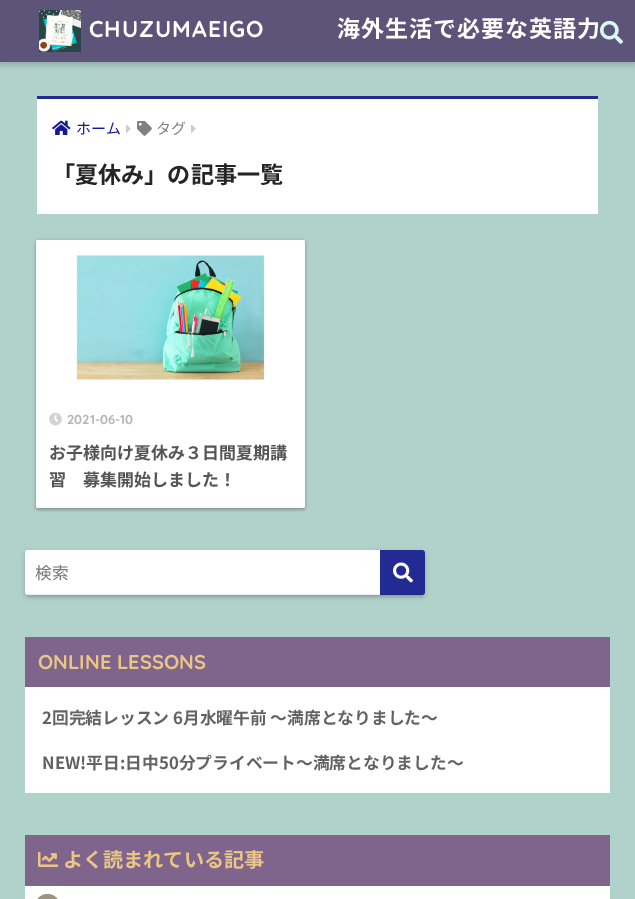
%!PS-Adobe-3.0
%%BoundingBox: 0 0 635 899
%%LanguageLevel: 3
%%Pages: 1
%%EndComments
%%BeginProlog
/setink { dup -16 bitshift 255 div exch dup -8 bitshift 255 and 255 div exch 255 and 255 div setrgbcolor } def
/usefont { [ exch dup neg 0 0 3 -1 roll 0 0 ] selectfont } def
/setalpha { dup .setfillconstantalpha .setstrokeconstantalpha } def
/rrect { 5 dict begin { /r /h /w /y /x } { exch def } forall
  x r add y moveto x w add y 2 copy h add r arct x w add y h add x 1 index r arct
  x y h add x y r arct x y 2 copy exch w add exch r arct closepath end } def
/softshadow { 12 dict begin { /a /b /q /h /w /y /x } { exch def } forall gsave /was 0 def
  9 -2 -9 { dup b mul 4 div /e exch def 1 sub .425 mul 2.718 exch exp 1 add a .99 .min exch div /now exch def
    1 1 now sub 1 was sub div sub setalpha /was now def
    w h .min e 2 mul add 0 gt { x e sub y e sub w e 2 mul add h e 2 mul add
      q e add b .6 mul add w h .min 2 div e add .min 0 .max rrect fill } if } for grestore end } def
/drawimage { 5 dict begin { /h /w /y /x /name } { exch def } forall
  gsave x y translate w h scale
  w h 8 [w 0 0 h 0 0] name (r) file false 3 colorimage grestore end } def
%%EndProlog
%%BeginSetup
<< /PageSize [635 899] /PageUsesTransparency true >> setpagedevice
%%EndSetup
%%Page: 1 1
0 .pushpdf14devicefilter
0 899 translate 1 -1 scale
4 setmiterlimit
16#B1D1CB setink
0 0 635 899 rectfill
16#000000 setink
0 3 635 62 0 3 0.18 softshadow
16#5D547A setink
0 0 635 62 rectfill
(img1.raw) 39 10 42 42 drawimage
/Quicksand-Bold 23 usefont
16#FFFFFF setink
89 37 moveto 1 0 (CHUZUMAEIGO) ashow
/NotoSansJP-Bold 23 usefont
337 37 moveto 1 0 (海外生活で必要な英語力) ashow
(img2.raw) 600 20 23 24 drawimage
37 99 561 115 rectfill
16#222B93 setink
37 96 561 3 rectfill
(img3.raw) 52 120 19 15 drawimage
/NotoSansJP-Regular 15 usefont
16#171993 setink
76 134 moveto (ホーム) show
(img4.raw) 126 124 5 9 drawimage
(img5.raw) 137 121 15 15 drawimage
16#808080 setink
156 134 moveto (タグ) show
(img4.raw) 191 124 5 9 drawimage
/NotoSansJP-Bold 23.1 usefont
16#252525 setink
52 183 moveto (「夏休み」の記事一覧) show
16#000000 setink
36 242 269 268 2 1.5 0.22 softshadow
36 240 269 268 2 1.5 0.12 softshadow
16#FFFFFF setink
36 240 269 268 2 rrect fill
(img6.raw) 36 240 269 140 drawimage
(img7.raw) 49 412 13 14 drawimage
/Quicksand-Bold 13 usefont
16#B5B5B5 setink
67 424 moveto (2021-06-10) show
/NotoSansJP-Bold 17 usefont
16#555555 setink
49 459 moveto (お子様向け夏休み３日間夏期講) show
49 486 moveto (習　募集開始しました！) show
16#000000 setink
27 555 396 41 1 1.5 0.15 softshadow
25 552 400 45 3 2.5 0.15 softshadow
16#FFFFFF setink
25 550 400 45 3 rrect fill
16#EFEFEF setink
27 594 397 1 rectfill
/NotoSansJP-Regular 16.75 usefont
16#757575 setink
35 579 moveto (検索) show
16#222B93 setink
380 550 moveto 422 550 lineto 423.5 550 425 551.5 425 553 curveto 425 592 lineto 425 593.5 423.5 595 422 595 curveto 380 595 lineto closepath fill
0.1 setalpha
16#000000 setink
380 594 44 1 rectfill
1 setalpha
(img8.raw) 393 562 20 21 drawimage
16#FFFFFF setink
25 687 585 106 rectfill
16#7F648C setink
25 637 585 50 rectfill
/Quicksand-Bold 20.1 usefont
16#EAC585 setink
38 669 moveto (ONLINE LESSONS) show
/NotoSansJP-Bold 16.75 usefont
16#626262 setink
42 724 moveto (2回完結レッスン 6月水曜午前 〜満席となりました〜) show
42 769 moveto (NEW!平日:日中50分プライベート〜満席となりました〜) show
16#FFFFFF setink
25 886 585 13 rectfill
16#7F648C setink
25 835 585 51 rectfill
(img9.raw) 38 851 21 16 drawimage
/NotoSansJP-Bold 20.1 usefont
16#EAC585 setink
63 867 moveto (よく読まれている記事) show
16#9B9481 setink
35 894 25 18 12.5 rrect fill
.poppdf14devicefilter showpage
%%EOF
